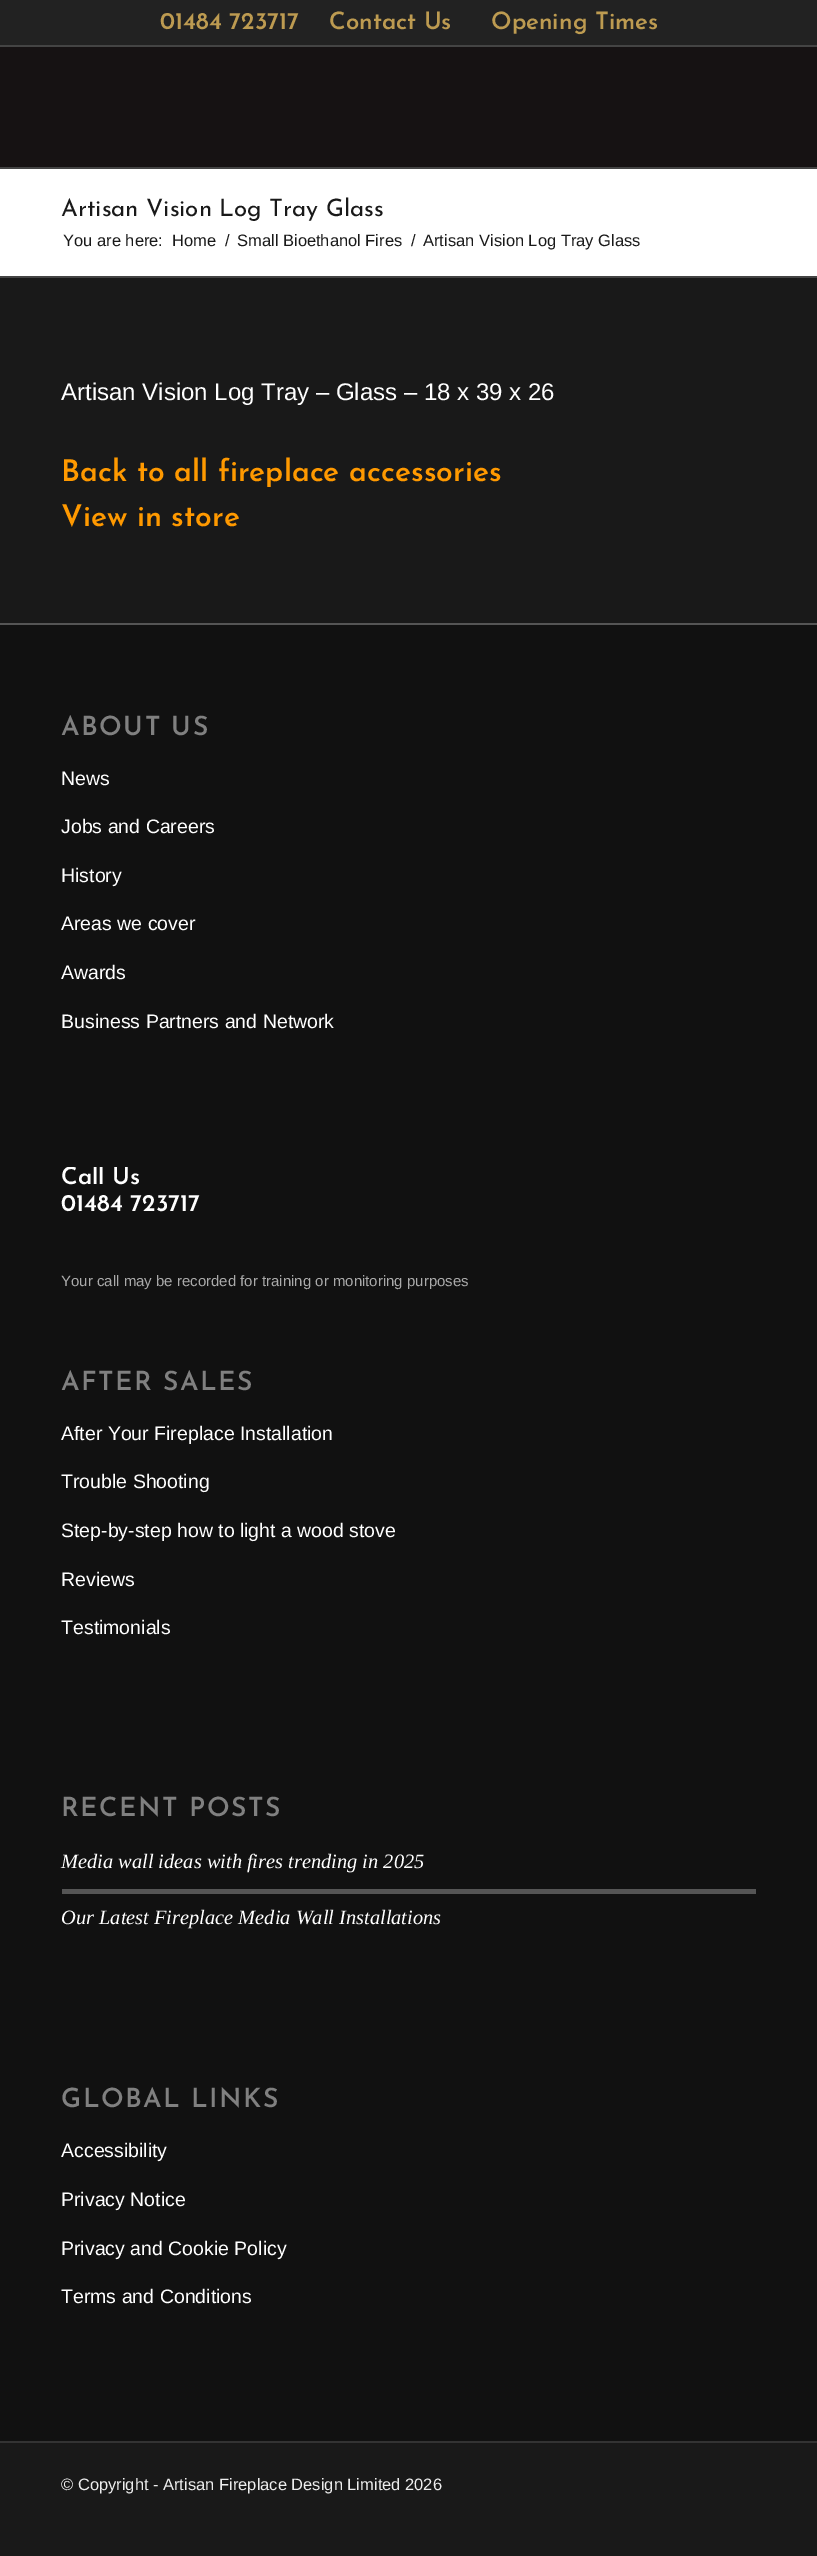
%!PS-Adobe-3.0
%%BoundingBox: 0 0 817 2556
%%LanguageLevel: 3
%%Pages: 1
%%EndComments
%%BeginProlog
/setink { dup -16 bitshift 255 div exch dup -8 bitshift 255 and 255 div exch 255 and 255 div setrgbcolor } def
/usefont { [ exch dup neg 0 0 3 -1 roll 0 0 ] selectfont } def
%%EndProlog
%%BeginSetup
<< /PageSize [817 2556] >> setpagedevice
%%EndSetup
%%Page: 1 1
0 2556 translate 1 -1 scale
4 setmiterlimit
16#191919 setink
0 0 817 2556 rectfill
16#222222 setink
0 0 817 45 rectfill
16#444444 setink
0 45 817 2 rectfill
/JosefinSans-SemiBold 24 usefont
16#BD9B51 setink
[
    [(01484 723717) 160 29]
    [(Contact Us) 329 29]
    [(Opening Times) 491 29]
] { aload pop moveto show } forall
[
    [0 47 817 120 16#161213]
    [0 167 817 2 16#444444]
    [0 169 817 107 16#FFFFFF]
] { aload pop setink rectfill } forall
/JosefinSans-Regular 24 usefont
16#191919 setink
61 216 moveto (Artisan Vision Log Tray Glass) show
/LiberationSans-Regular 16.5 usefont
[
    [(You are here:) 63 246]
    [(Home) 172 246]
    [(/) 225 246]
    [(Small Bioethanol Fires) 237 246]
    [(/) 411 246]
    [(Artisan Vision Log Tray Glass) 423 246]
] { aload pop moveto show } forall
16#444444 setink
0 276 817 2 rectfill
/LiberationSans-Regular 24 usefont
16#FFFFFF setink
61 400 moveto (Artisan Vision Log Tray – Glass – 18 x 39 x 26) show
/JosefinSans-SemiBold 30 usefont
16#FF9900 setink
61 481 moveto (Back to all fireplace accessories) show
61 526 moveto (View in store) show
16#111111 setink
0 625 817 1816 rectfill
16#555555 setink
0 623 817 2 rectfill
/JosefinSans-SemiBold 26.5 usefont
16#808080 setink
61 735 moveto 1.5 0 (ABOUT US) ashow
/LiberationSans-Regular 19.5 usefont
16#FFFFFF setink
[
    [(News) 61 785]
    [(Jobs and Careers) 61 833]
    [(History) 61 882]
    [(Areas we cover) 61 930]
    [(Awards) 61 979]
    [(Business Partners and Network) 61 1028]
] { aload pop moveto show } forall
gsave
62 1167 694 135 rectclip
/JosefinSans-SemiBold 24 usefont
61 1184 moveto (Call Us) show
grestore
/JosefinSans-SemiBold 24 usefont
61 1211 moveto (01484 723717) show
/LiberationSans-Regular 15 usefont
16#AAAAAA setink
61 1286 moveto (Your call may be recorded for training or monitoring purposes) show
/JosefinSans-SemiBold 26.5 usefont
16#808080 setink
61 1390 moveto 1.5 0 (AFTER SALES) ashow
/LiberationSans-Regular 19.5 usefont
16#FFFFFF setink
[
    [(After Your Fireplace Installation) 61 1440]
    [(Trouble Shooting) 61 1488]
    [(Step-by-step how to light a wood stove) 61 1537]
    [(Reviews) 61 1586]
    [(Testimonials) 61 1634]
] { aload pop moveto show } forall
/JosefinSans-SemiBold 26.5 usefont
16#808080 setink
61 1816 moveto 1.5 0 (RECENT POSTS) ashow
/LiberationSerif-Italic 20.4 usefont
16#FFFFFF setink
61 1868 moveto (Media wall ideas with fires trending in 2025) show
16#555555 setink
62 1889 694 5 rectfill
16#FFFFFF setink
61 1924 moveto (Our Latest Fireplace Media Wall Installations) show
/JosefinSans-SemiBold 26.5 usefont
16#808080 setink
61 2107 moveto 1.5 0 (GLOBAL LINKS) ashow
/LiberationSans-Regular 19.5 usefont
16#FFFFFF setink
[
    [(Accessibility) 61 2157]
    [(Privacy Notice) 61 2206]
    [(Privacy and Cookie Policy) 61 2255]
    [(Terms and Conditions) 61 2303]
] { aload pop moveto show } forall
16#333333 setink
0 2441 817 2 rectfill
/LiberationSans-Regular 16.5 usefont
16#EEEEEE setink
61 2490 moveto (© Copyright - Artisan Fireplace Design Limited 2026) show
showpage
%%EOF
